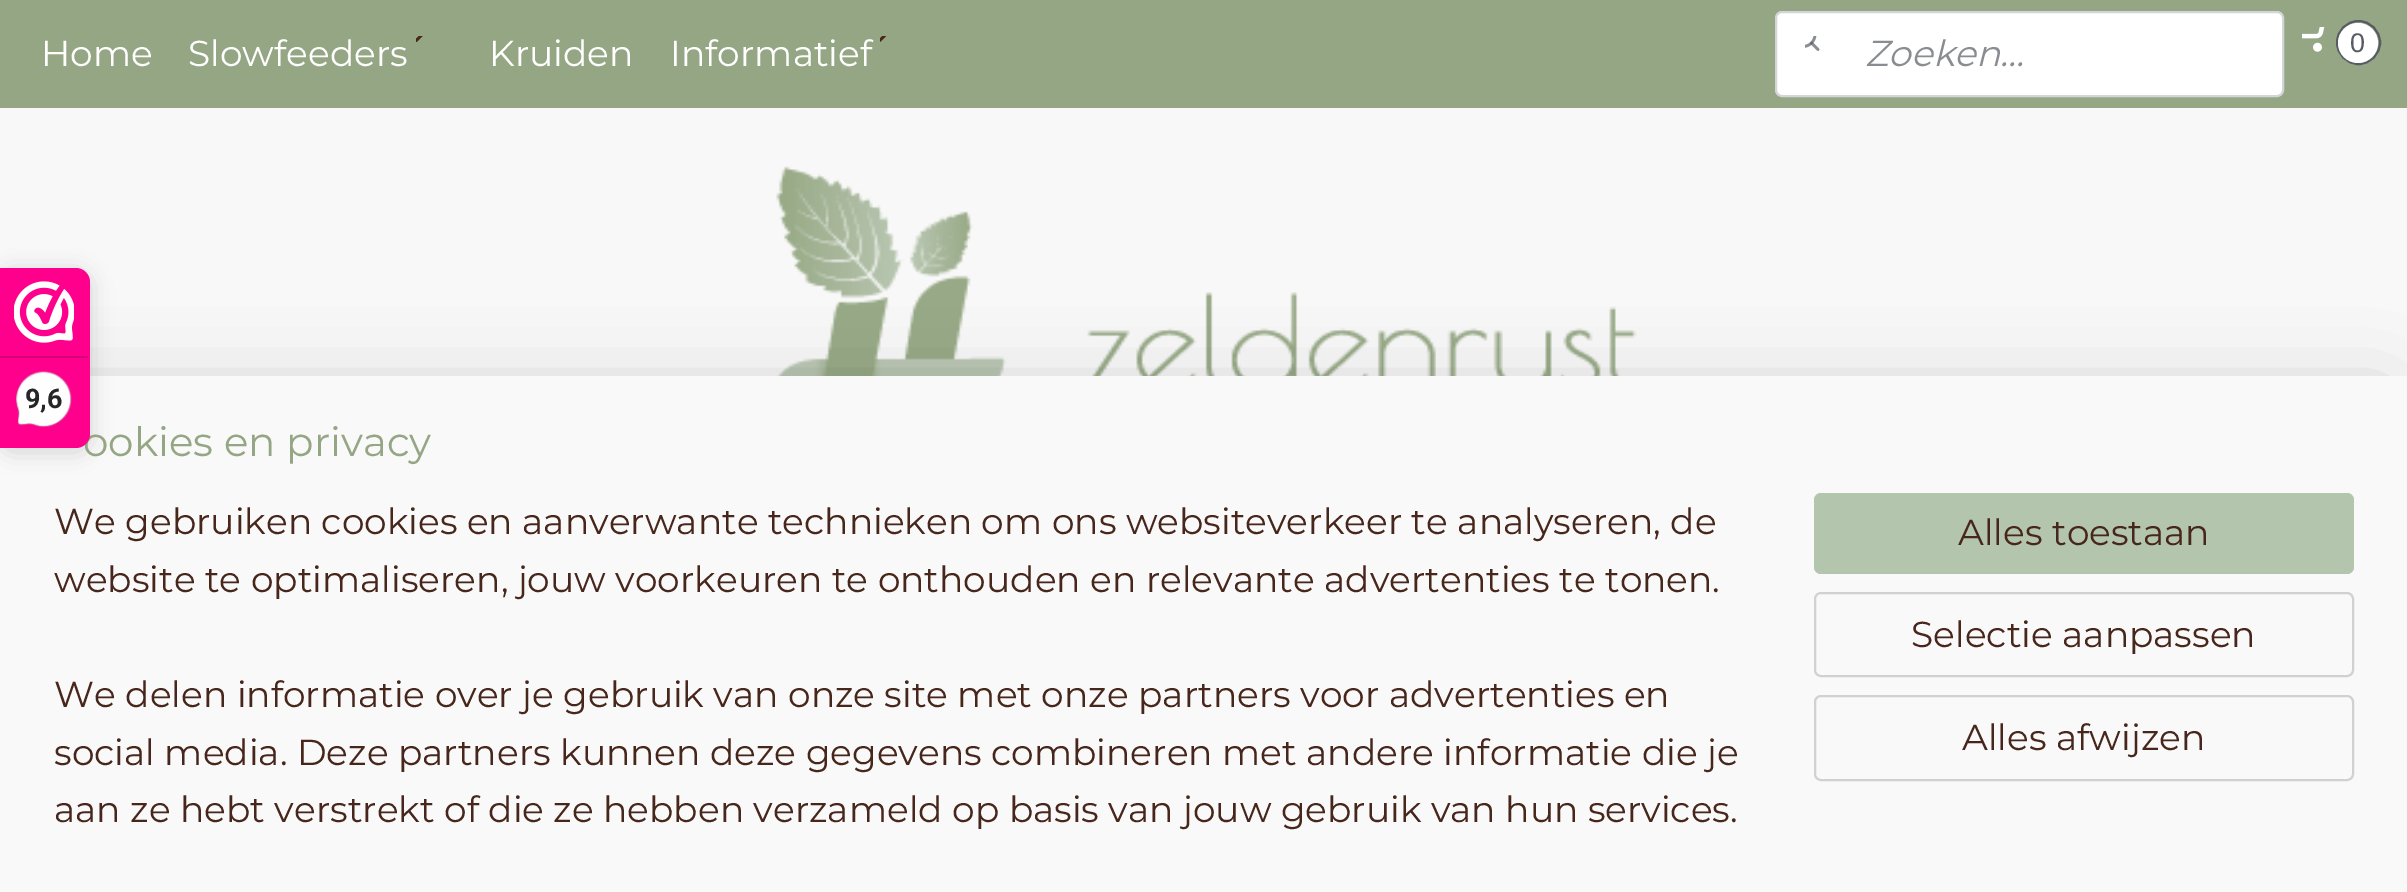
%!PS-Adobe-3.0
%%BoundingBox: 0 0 2407 892
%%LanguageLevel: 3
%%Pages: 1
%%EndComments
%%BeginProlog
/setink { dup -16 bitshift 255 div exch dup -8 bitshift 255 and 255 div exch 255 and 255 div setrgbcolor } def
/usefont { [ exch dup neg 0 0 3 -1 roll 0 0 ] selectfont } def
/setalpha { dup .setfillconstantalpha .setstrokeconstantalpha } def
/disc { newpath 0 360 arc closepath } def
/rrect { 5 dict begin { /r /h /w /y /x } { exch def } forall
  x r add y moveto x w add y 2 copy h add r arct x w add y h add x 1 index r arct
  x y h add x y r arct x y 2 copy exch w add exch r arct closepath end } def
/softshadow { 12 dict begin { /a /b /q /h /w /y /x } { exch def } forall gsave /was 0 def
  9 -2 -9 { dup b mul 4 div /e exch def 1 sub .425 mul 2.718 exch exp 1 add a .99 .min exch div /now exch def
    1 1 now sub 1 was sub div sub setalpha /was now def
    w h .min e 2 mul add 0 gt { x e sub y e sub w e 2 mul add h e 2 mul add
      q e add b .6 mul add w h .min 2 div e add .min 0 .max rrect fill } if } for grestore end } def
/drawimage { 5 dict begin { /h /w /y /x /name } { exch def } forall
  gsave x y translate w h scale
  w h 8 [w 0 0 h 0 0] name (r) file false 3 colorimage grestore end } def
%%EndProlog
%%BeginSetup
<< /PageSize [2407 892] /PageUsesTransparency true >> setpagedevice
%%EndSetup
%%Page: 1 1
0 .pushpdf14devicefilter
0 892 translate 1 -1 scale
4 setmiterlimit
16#F8F8F8 setink
0 0 2407 892 rectfill
16#95A684 setink
0 0 2407 108 rectfill
/Montserrat-Regular 36 usefont
16#FFFFFF setink
41 66 moveto (Home) show
188 66 moveto (Slowfeeders) show
(img1.raw) 416 36 7 6 drawimage
489 66 moveto (Kruiden) show
670 66 moveto (Informatief) show
(img2.raw) 880 36 7 6 drawimage
1776 12 507 84 6 rrect gsave fill grestore
16#D3D5D9 setink
2 setlinewidth
stroke
(img3.raw) 1805 36 15 15 drawimage
/Montserrat-Italic 36 usefont
16#898C91 setink
1865 66 moveto (Zoeken...) show
(img4.raw) 2302 27 23 25 drawimage
16#575B62 setink
2358.5 42.5 21.5 disc stroke
16#FFFFFF setink
2358 43 20 disc fill
/LiberationSans-Regular 27 usefont
16#575B62 setink
2350 52 moveto (0) show
(img5.raw) 776 166 861 210 drawimage
16#000000 setink
23 398 2362 473 0 40.5 0.2 softshadow
16#F9F9F9 setink
0 376 2407 516 rectfill
16#000000 setink
0 272 90 180 14 11 0.15 softshadow
/Montserrat-Regular 40.5 usefont
16#95A684 setink
83 456 moveto (ookies en privacy) show
16#FE008C setink
0 268 moveto 76 268 lineto 83.5 268 90 274.5 90 282 curveto 90 434 lineto 90 441.5 83.5 448 76 448 curveto 0 448 lineto closepath fill
(img6.raw) 14 281 60 62 drawimage
16#D80077 setink
0 356 88 2 rectfill
(img7.raw) 16 371 56 57 drawimage
/Roboto-Bold 27 usefont
16#272626 setink
25 408 moveto (9,6) show
/Montserrat-Regular 36 usefont
16#47261B setink
[
    [(We gebruiken cookies en aanverwante technieken om ons websiteverkeer te analyseren, de) 54 534]
    [(website te optimaliseren, jouw voorkeuren te onthouden en relevante advertenties te tonen.) 54 592]
    [(We delen informatie over je gebruik van onze site met onze partners voor advertenties en) 54 707]
    [(social media. Deze partners kunnen deze gegevens combineren met andere informatie die je) 54 765]
    [(aan ze hebt verstrekt of die ze hebben verzameld op basis van jouw gebruik van hun services.) 54 822]
] { aload pop moveto show } forall
16#B3C5AD setink
1814 493 540 81 7 rrect fill
16#47261B setink
1958 545 moveto (Alles toestaan) show
16#D1D1D1 setink
1815 593 538 83 6 rrect stroke
16#47261B setink
1911 647 moveto (Selectie aanpassen) show
16#D1D1D1 setink
1815 696 538 84 6 rrect stroke
16#47261B setink
1962 750 moveto (Alles afwijzen) show
.poppdf14devicefilter showpage
%%EOF
